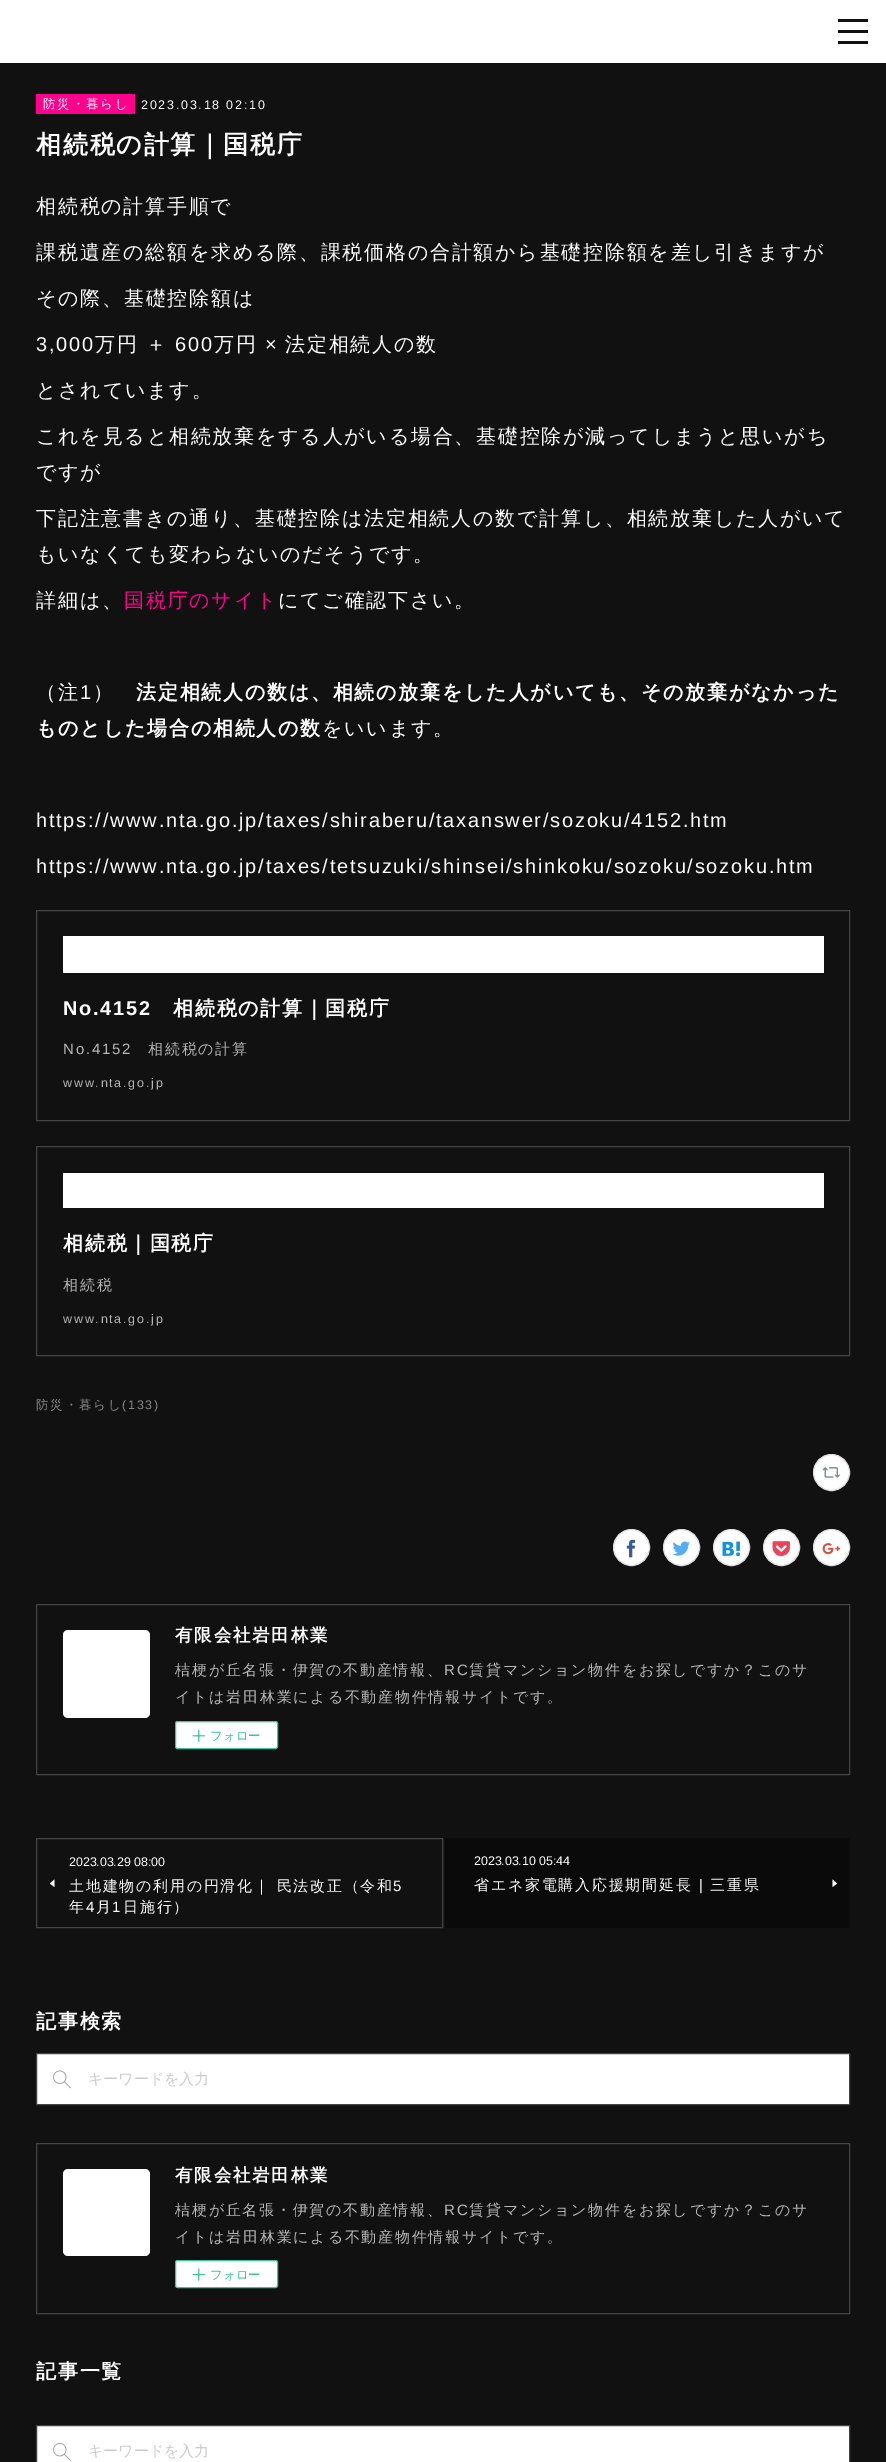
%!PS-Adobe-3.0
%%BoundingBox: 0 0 886 2462
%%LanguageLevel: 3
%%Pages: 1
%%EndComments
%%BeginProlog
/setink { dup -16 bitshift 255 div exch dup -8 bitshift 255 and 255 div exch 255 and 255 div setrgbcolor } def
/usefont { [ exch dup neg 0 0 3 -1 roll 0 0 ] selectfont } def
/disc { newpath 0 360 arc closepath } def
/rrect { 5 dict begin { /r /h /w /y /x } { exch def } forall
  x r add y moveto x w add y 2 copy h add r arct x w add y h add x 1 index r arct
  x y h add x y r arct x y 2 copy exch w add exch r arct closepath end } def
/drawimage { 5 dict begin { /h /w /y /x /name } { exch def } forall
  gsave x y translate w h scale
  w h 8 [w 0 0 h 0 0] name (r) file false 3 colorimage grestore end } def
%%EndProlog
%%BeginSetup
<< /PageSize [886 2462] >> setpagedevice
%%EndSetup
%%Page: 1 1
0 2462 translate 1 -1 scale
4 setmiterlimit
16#111111 setink
0 0 886 2462 rectfill
[
    [0 0 886 63 16#FFFFFF]
    [838 19 30 3 16#111111]
    [838 30 30 3 16#111111]
    [838 41 30 3 16#111111]
    [36 94 99 20 16#FF008C]
] { aload pop setink rectfill } forall
/WenQuanYiZenHei-Medium 12.5 usefont
16#FFFFFF setink
43 108 moveto 1.75 0 (防災・暮らし) ashow
/LiberationSans-Regular 12.5 usefont
141 109 moveto 1.75 0 (2023.03.18 02:10) ashow
/WenQuanYiZenHei-Bold 25 usefont
36 153 moveto 1.75 0 (相続税の計算｜国税庁) ashow
/WenQuanYiZenHei-Medium 20 usefont
36 213 moveto 1.75 0 (相続税の計算手順で) ashow
36 259 moveto 1.75 0 (課税遺産の総額を求める際、課税価格の合計額から基礎控除額を差し引きますが) ashow
36 305 moveto 1.75 0 (その際、基礎控除額は) ashow
/LiberationSans-Regular 20 usefont
36 351 moveto 1.75 0 (3,000) ashow
/WenQuanYiZenHei-Medium 20 usefont
95 351 moveto 1.75 0 (万円 ＋) ashow
/LiberationSans-Regular 20 usefont
175 351 moveto 1.75 0 (600) ashow
/WenQuanYiZenHei-Medium 20 usefont
214 351 moveto 1.75 0 (万円) ashow
/LiberationSans-Regular 20 usefont
265 351 moveto 1.75 0 (×) ashow
/WenQuanYiZenHei-Medium 20 usefont
285 351 moveto 1.75 0 (法定相続人の数) ashow
36 397 moveto 1.75 0 (とされています。) ashow
36 443 moveto 1.75 0 (これを見ると相続放棄をする人がいる場合、基礎控除が減ってしまうと思いがち) ashow
36 479 moveto 1.75 0 (ですが) ashow
36 525 moveto 1.75 0 (下記注意書きの通り、基礎控除は法定相続人の数で計算し、相続放棄した人がいて) ashow
36 561 moveto 1.75 0 (もいなくても変わらないのだそうです。) ashow
36 607 moveto 1.75 0 (詳細は、) ashow
16#FF008C setink
124 607 moveto 1.75 0 (国税庁のサイト) ashow
16#FFFFFF setink
278 607 moveto 1.75 0 (にてご確認下さい。) ashow
36 699 moveto 1.75 0 (（注) ashow
/LiberationSans-Regular 20 usefont
80 699 moveto 1.75 0 (1) ashow
/WenQuanYiZenHei-Medium 20 usefont
93 699 moveto 1.75 0 (）) ashow
/WenQuanYiZenHei-Bold 20 usefont
136 699 moveto 1.75 0 (法定相続人の数は、相続の放棄をした人がいても、その放棄がなかった) ashow
36 735 moveto 1.75 0 (ものとした場合の相続人の数) ashow
/WenQuanYiZenHei-Medium 20 usefont
322 735 moveto 1.75 0 (をいいます。) ashow
/LiberationSans-Regular 20 usefont
36 827 moveto 1.75 0 (https://www.nta.go.jp/taxes/shiraberu/taxanswer/sozoku/4152.htm) ashow
36 873 moveto 1.75 0 (https://www.nta.go.jp/taxes/tetsuzuki/shinsei/shinkoku/sozoku/sozoku.htm) ashow
16#444444 setink
36.5 910.5 813 210 rectstroke
16#FFFFFF setink
63 936 761 37 rectfill
/LiberationSans-Bold 20 usefont
63 1015 moveto 1.75 0 (No.4152) ashow
/WenQuanYiZenHei-Bold 20 usefont
173 1015 moveto 1.75 0 (相続税の計算｜国税庁) ashow
/LiberationSans-Regular 15 usefont
16#B8B8B8 setink
63 1054 moveto 1.75 0 (No.4152) ashow
/WenQuanYiZenHei-Medium 15 usefont
148 1054 moveto 1.75 0 (相続税の計算) ashow
/LiberationSans-Regular 12.5 usefont
63 1087 moveto 1.75 0 (www.nta.go.jp) ashow
16#444444 setink
36.5 1146.5 813 209 rectstroke
16#FFFFFF setink
63 1173 761 35 rectfill
/WenQuanYiZenHei-Bold 20 usefont
63 1250 moveto 1.75 0 (相続税｜国税庁) ashow
/WenQuanYiZenHei-Medium 15 usefont
16#B8B8B8 setink
63 1290 moveto 1.75 0 (相続税) ashow
/LiberationSans-Regular 12.5 usefont
63 1323 moveto 1.75 0 (www.nta.go.jp) ashow
/WenQuanYiZenHei-Medium 12.5 usefont
16#888888 setink
36 1409 moveto 1.75 0 (防災・暮らし) ashow
/LiberationSans-Regular 12.5 usefont
122 1409 moveto 1.75 0 (\(133\)) ashow
16#FFFFFF setink
831.5 1472.5 18 disc gsave fill grestore
16#DDDDDD setink
stroke
(img1.raw) 822 1467 18 11 drawimage
16#FFFFFF setink
631.5 1547.5 18 disc gsave fill grestore
16#DDDDDD setink
stroke
(img2.raw) 626 1539 9 19 drawimage
16#FFFFFF setink
681.5 1547.5 18 disc gsave fill grestore
16#DDDDDD setink
stroke
(img3.raw) 672 1541 18 15 drawimage
16#FFFFFF setink
731.5 1547.5 18 disc gsave fill grestore
16#DDDDDD setink
stroke
(img4.raw) 722 1541 18 16 drawimage
16#FFFFFF setink
781.5 1547.5 18 disc gsave fill grestore
16#DDDDDD setink
stroke
(img5.raw) 772 1541 18 16 drawimage
16#FFFFFF setink
831.5 1547.5 18 disc gsave fill grestore
16#DDDDDD setink
stroke
(img6.raw) 822 1543 19 12 drawimage
16#444444 setink
36.5 1604.5 813 170 rectstroke
16#FFFFFF setink
63 1630 87 88 5 rrect fill
/WenQuanYiZenHei-Bold 17.5 usefont
175 1641 moveto 1.75 0 (有限会社岩田林業) ashow
/WenQuanYiZenHei-Medium 15 usefont
16#B8B8B8 setink
175 1675 moveto 1.75 0 (桔梗が丘名張・伊賀の不動産情報、) ashow
/LiberationSans-Regular 15 usefont
444 1675 moveto 1.75 0 (RC) ashow
/WenQuanYiZenHei-Medium 15 usefont
469 1675 moveto 1.75 0 (賃貸マンション物件をお探しですか？このサ) ashow
175 1702 moveto 1.75 0 (イトは岩田林業による不動産物件情報サイトです。) ashow
16#FFFFFF setink
175.5 1721.5 102 27 2 rrect gsave fill grestore
16#3DC49D setink
stroke
(img7.raw) 192 1729 13 13 drawimage
/WenQuanYiZenHei-Medium 12.5 usefont
210 1740 moveto (フォロー) show
16#444444 setink
36.5 1838.5 406 89 rectstroke
/LiberationSans-Regular 12.5 usefont
16#FFFFFF setink
69 1866 moveto -0.1 0 (2023.03.29 08:00) ashow
54.5 1887 moveto 54.5 1879.5 lineto 50 1883.5 lineto closepath fill
/WenQuanYiZenHei-Medium 15 usefont
69 1891 moveto 1.75 0 (土地建物の利用の円滑化｜ 民法改正（令和) ashow
/LiberationSans-Regular 15 usefont
393 1891 moveto 1.75 0 (5) ashow
/WenQuanYiZenHei-Medium 15 usefont
69 1912 moveto 1.75 0 (年) ashow
/LiberationSans-Regular 15 usefont
86 1912 moveto 1.75 0 (4) ashow
/WenQuanYiZenHei-Medium 15 usefont
96 1912 moveto 1.75 0 (月) ashow
/LiberationSans-Regular 15 usefont
112 1912 moveto 1.75 0 (1) ashow
/WenQuanYiZenHei-Medium 15 usefont
123 1912 moveto 1.75 0 (日施行）) ashow
16#0A0A0A setink
445 1838 405 90 rectfill
/LiberationSans-Regular 12.5 usefont
16#FFFFFF setink
474 1865 moveto -0.1 0 (2023.03.10 05:44) ashow
/WenQuanYiZenHei-Medium 15 usefont
474 1890 moveto 1.75 0 (省エネ家電購入応援期間延長) ashow
/LiberationSans-Regular 15 usefont
699 1890 moveto 1.75 0 (|) ashow
/WenQuanYiZenHei-Medium 15 usefont
710 1890 moveto 1.75 0 (三重県) ashow
832.5 1879.5 moveto 832.5 1887 lineto 837 1883.5 lineto closepath fill
/WenQuanYiZenHei-Bold 20 usefont
36 2028 moveto 1.75 0 (記事検索) ashow
36.5 2053.5 moveto 849.5 2053.5 lineto 849.5 2104.5 lineto 36.5 2104.5 lineto closepath gsave fill grestore
16#444444 setink
stroke
(img8.raw) 53 2070 18 19 drawimage
/WenQuanYiZenHei-Medium 15 usefont
16#CCCCCC setink
88 2084 moveto (キーワードを入力) show
16#444444 setink
36.5 2143.5 813 170 rectstroke
16#FFFFFF setink
63 2169 87 87 5 rrect fill
/WenQuanYiZenHei-Bold 17.5 usefont
175 2181 moveto 1.75 0 (有限会社岩田林業) ashow
/WenQuanYiZenHei-Medium 15 usefont
16#B8B8B8 setink
175 2215 moveto 1.75 0 (桔梗が丘名張・伊賀の不動産情報、) ashow
/LiberationSans-Regular 15 usefont
444 2215 moveto 1.75 0 (RC) ashow
/WenQuanYiZenHei-Medium 15 usefont
469 2215 moveto 1.75 0 (賃貸マンション物件をお探しですか？このサ) ashow
175 2242 moveto 1.75 0 (イトは岩田林業による不動産物件情報サイトです。) ashow
16#FFFFFF setink
175.5 2260.5 102 27 2 rrect gsave fill grestore
16#3DC49D setink
stroke
(img9.raw) 192 2268 13 13 drawimage
/WenQuanYiZenHei-Medium 12.5 usefont
210 2279 moveto (フォロー) show
/WenQuanYiZenHei-Bold 20 usefont
16#FFFFFF setink
36 2378 moveto 1.75 0 (記事一覧) ashow
36.5 2425.5 moveto 849.5 2425.5 lineto 849.5 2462.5 lineto 36.5 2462.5 lineto closepath gsave fill grestore
16#444444 setink
stroke
(img10.raw) 53 2443 18 18 drawimage
/WenQuanYiZenHei-Medium 15 usefont
16#CCCCCC setink
88 2456 moveto (キーワードを入力) show
showpage
%%EOF
